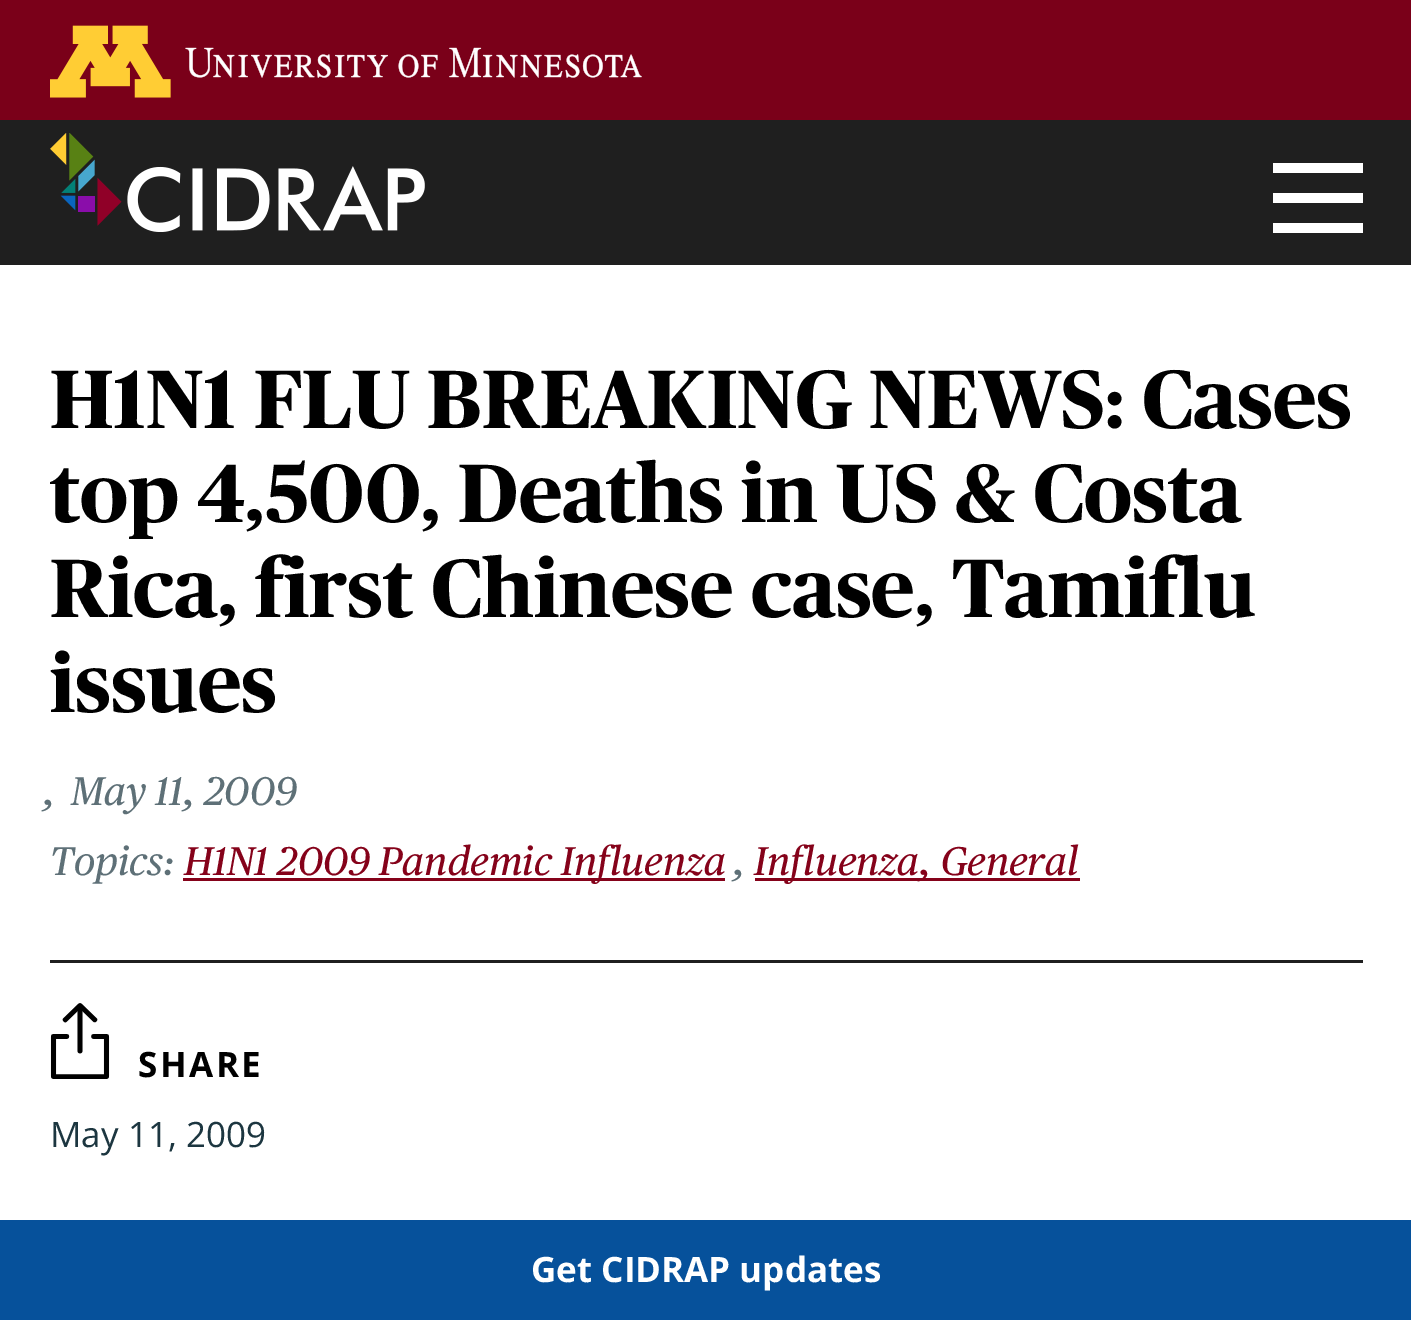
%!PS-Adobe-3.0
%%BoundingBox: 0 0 1411 1320
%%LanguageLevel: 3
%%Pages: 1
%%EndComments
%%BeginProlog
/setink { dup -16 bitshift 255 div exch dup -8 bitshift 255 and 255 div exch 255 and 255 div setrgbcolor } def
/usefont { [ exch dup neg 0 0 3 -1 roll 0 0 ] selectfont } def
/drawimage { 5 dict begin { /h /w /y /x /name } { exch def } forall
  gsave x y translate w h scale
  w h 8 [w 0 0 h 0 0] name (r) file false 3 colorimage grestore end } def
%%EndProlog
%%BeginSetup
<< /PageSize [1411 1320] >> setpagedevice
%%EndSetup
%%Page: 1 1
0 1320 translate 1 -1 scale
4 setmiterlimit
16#FFFFFF setink
0 0 1411 1320 rectfill
16#7A0019 setink
0 0 1411 120 rectfill
(img1.raw) 50 25 592 73 drawimage
16#1F1F1F setink
0 120 1411 145 rectfill
(img2.raw) 50 133 375 99 drawimage
[
    [1273 163 90 10 16#FFFFFF]
    [1273 193 90 10 16#FFFFFF]
    [1273 223 90 10 16#FFFFFF]
] { aload pop setink rectfill } forall
/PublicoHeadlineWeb-Bold 82.5 usefont
16#000000 setink
[
    [(H1N1 FLU BREAKING NEWS: Cases) 50 428]
    [(top 4,500, Deaths in US & Costa) 50 522]
    [(Rica, first Chinese case, Tamiflu) 50 617]
    [(issues) 50 712]
] { aload pop moveto show } forall
/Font-Italic 40 usefont
16#5E7077 setink
[
    [(,) 43 805]
    [(May 11, 2009) 71 805]
    [(Topics:) 50 875]
] { aload pop moveto show } forall
16#85021A setink
183 878 542 3 rectfill
184 875 moveto (H1N1 2009 Pandemic Influenza) show
16#5E7077 setink
733 875 moveto (,) show
16#85021A setink
755 878 325 3 rectfill
754 875 moveto (Influenza, General) show
16#1F1F1F setink
50 960 1313 3 rectfill
(img3.raw) 50 1003 60 76 drawimage
/OpenSans-Bold 35 usefont
16#000000 setink
138 1077 moveto 2.5 0 (SHARE) ashow
/OpenSans-Regular 35 usefont
16#1C3640 setink
50 1147 moveto (May 11, 2009) show
16#06519B setink
0 1220 1411 100 rectfill
/OpenSans-Bold 35 usefont
16#FFFFFF setink
531 1282 moveto (Get CIDRAP updates) show
showpage
%%EOF
